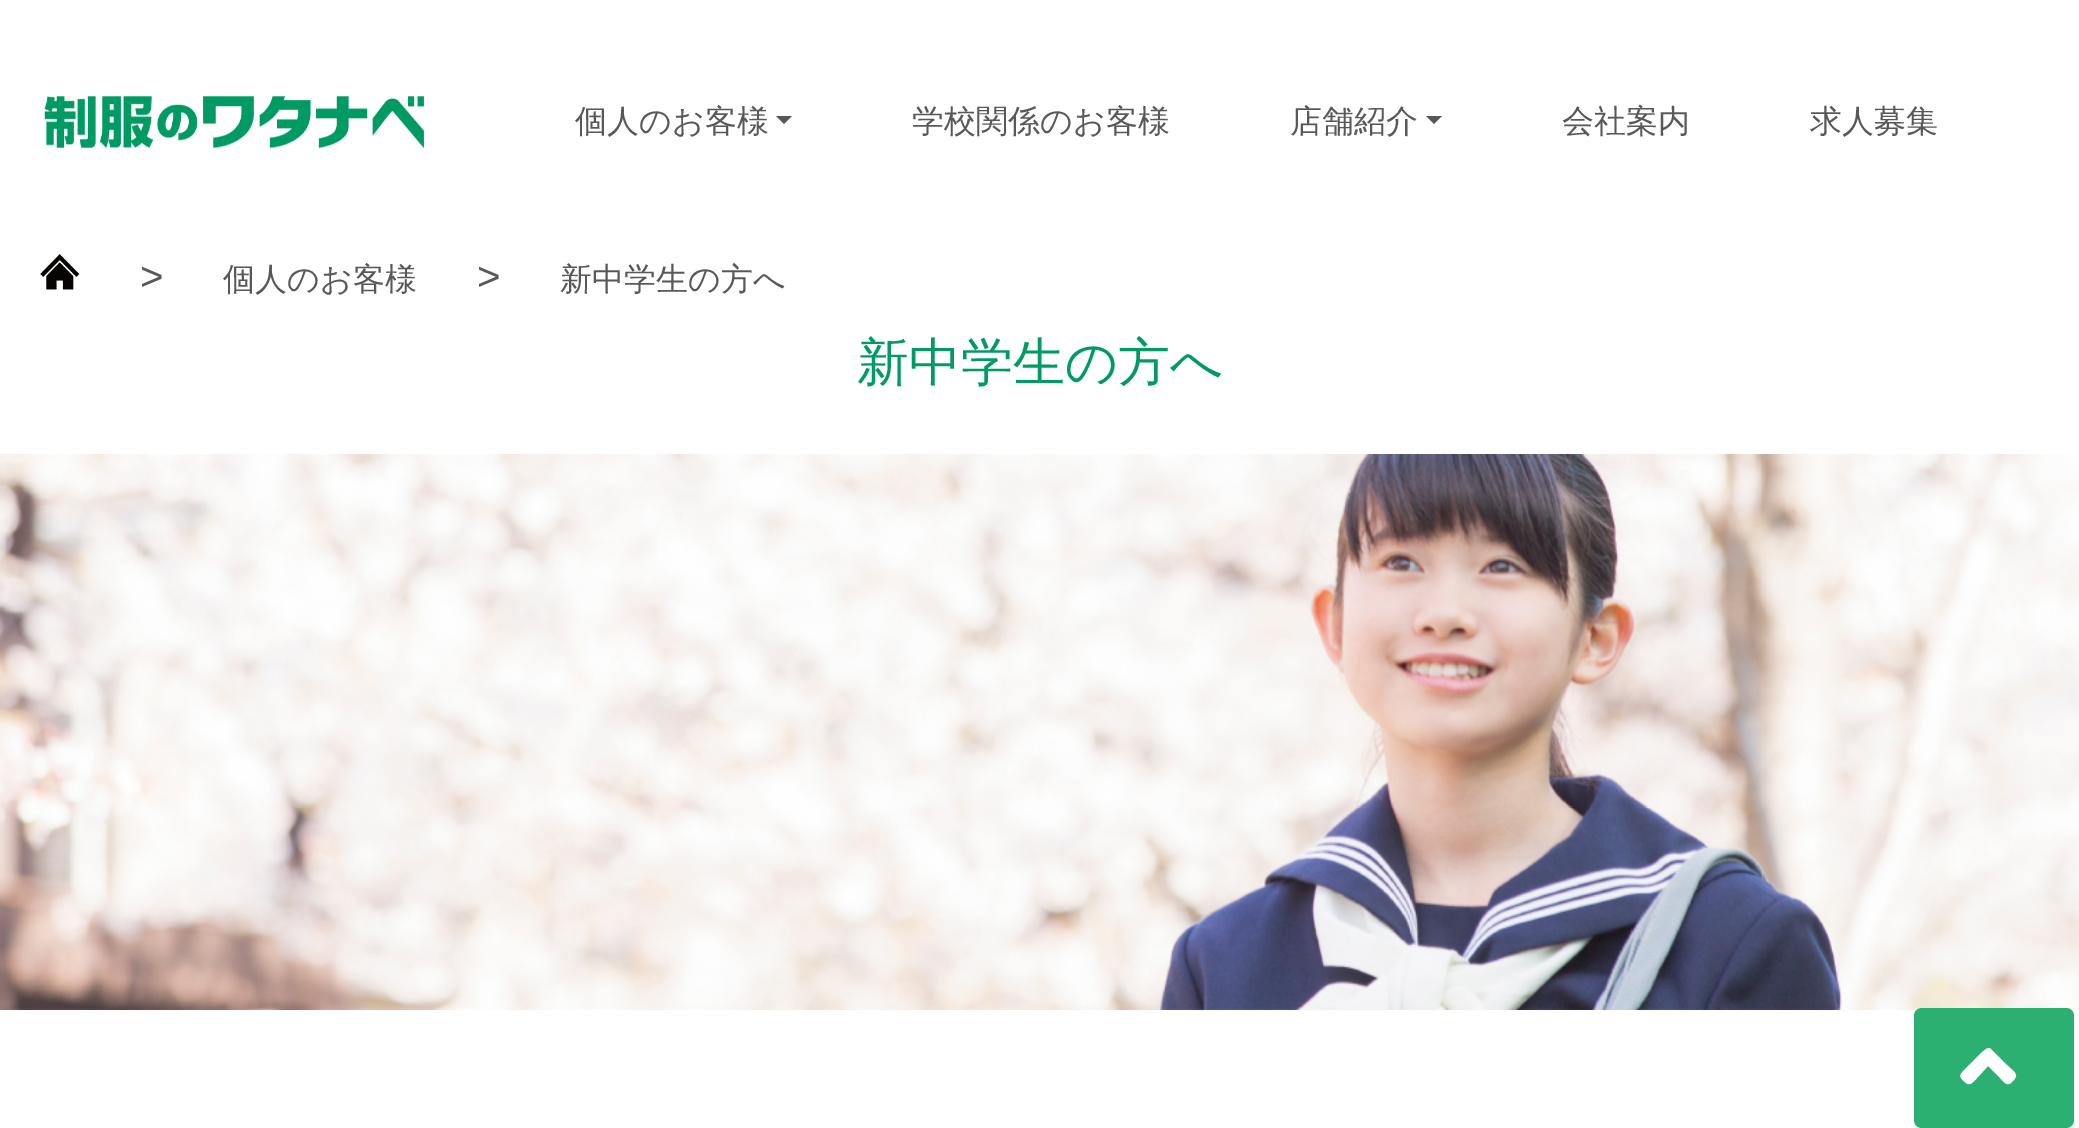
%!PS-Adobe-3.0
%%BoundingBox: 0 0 2079 1128
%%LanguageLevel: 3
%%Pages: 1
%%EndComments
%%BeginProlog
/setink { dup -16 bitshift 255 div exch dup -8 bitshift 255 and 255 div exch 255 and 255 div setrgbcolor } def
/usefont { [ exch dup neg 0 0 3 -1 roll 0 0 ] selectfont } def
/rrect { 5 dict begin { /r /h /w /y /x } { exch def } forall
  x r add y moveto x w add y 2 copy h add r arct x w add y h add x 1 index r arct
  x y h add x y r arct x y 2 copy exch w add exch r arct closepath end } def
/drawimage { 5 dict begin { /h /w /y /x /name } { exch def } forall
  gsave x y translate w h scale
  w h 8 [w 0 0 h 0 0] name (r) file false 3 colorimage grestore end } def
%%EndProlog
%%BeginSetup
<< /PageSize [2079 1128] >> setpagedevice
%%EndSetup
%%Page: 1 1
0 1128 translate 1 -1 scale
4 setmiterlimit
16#FFFFFF setink
0 0 2079 1128 rectfill
(img1.raw) 44 96 380 52 drawimage
/WenQuanYiZenHei-Medium 32 usefont
16#595757 setink
575 132 moveto (個人のお客様) show
776 116 moveto 792 116 lineto 784 124 lineto closepath fill
912 132 moveto (学校関係のお客様) show
1290 132 moveto (店舗紹介) show
1426 116 moveto 1442 116 lineto 1434 124 lineto closepath fill
1562 132 moveto (会社案内) show
1810 132 moveto (求人募集) show
(img2.raw) 40 254 40 36 drawimage
/LiberationSans-Regular 40 usefont
140 290 moveto (>) show
/WenQuanYiZenHei-Medium 32 usefont
223 290 moveto (個人のお客様) show
/LiberationSans-Regular 40 usefont
477 290 moveto (>) show
/WenQuanYiZenHei-Medium 32 usefont
560 290 moveto (新中学生の方へ) show
/WenQuanYiZenHei-Medium 52 usefont
16#009B63 setink
857 380 moveto (新中学生の方へ) show
(img3.raw) 0 454 2079 556 drawimage
16#2CB071 setink
1914 1008 160 120 8 rrect fill
16#FFFFFF setink
1991 1049 moveto 2007 1065 lineto 2015 1073 2020 1074 2012 1082 curveto 2007 1087 2004 1082 2000 1078 curveto 1988 1066 lineto 1977 1078 lineto 1975 1080 1970 1087 1966 1083 curveto 1956 1075 1961 1074 1969 1065 curveto 1981 1053 lineto 1984 1051 1988 1046 1991 1049 curveto closepath fill
showpage
%%EOF
